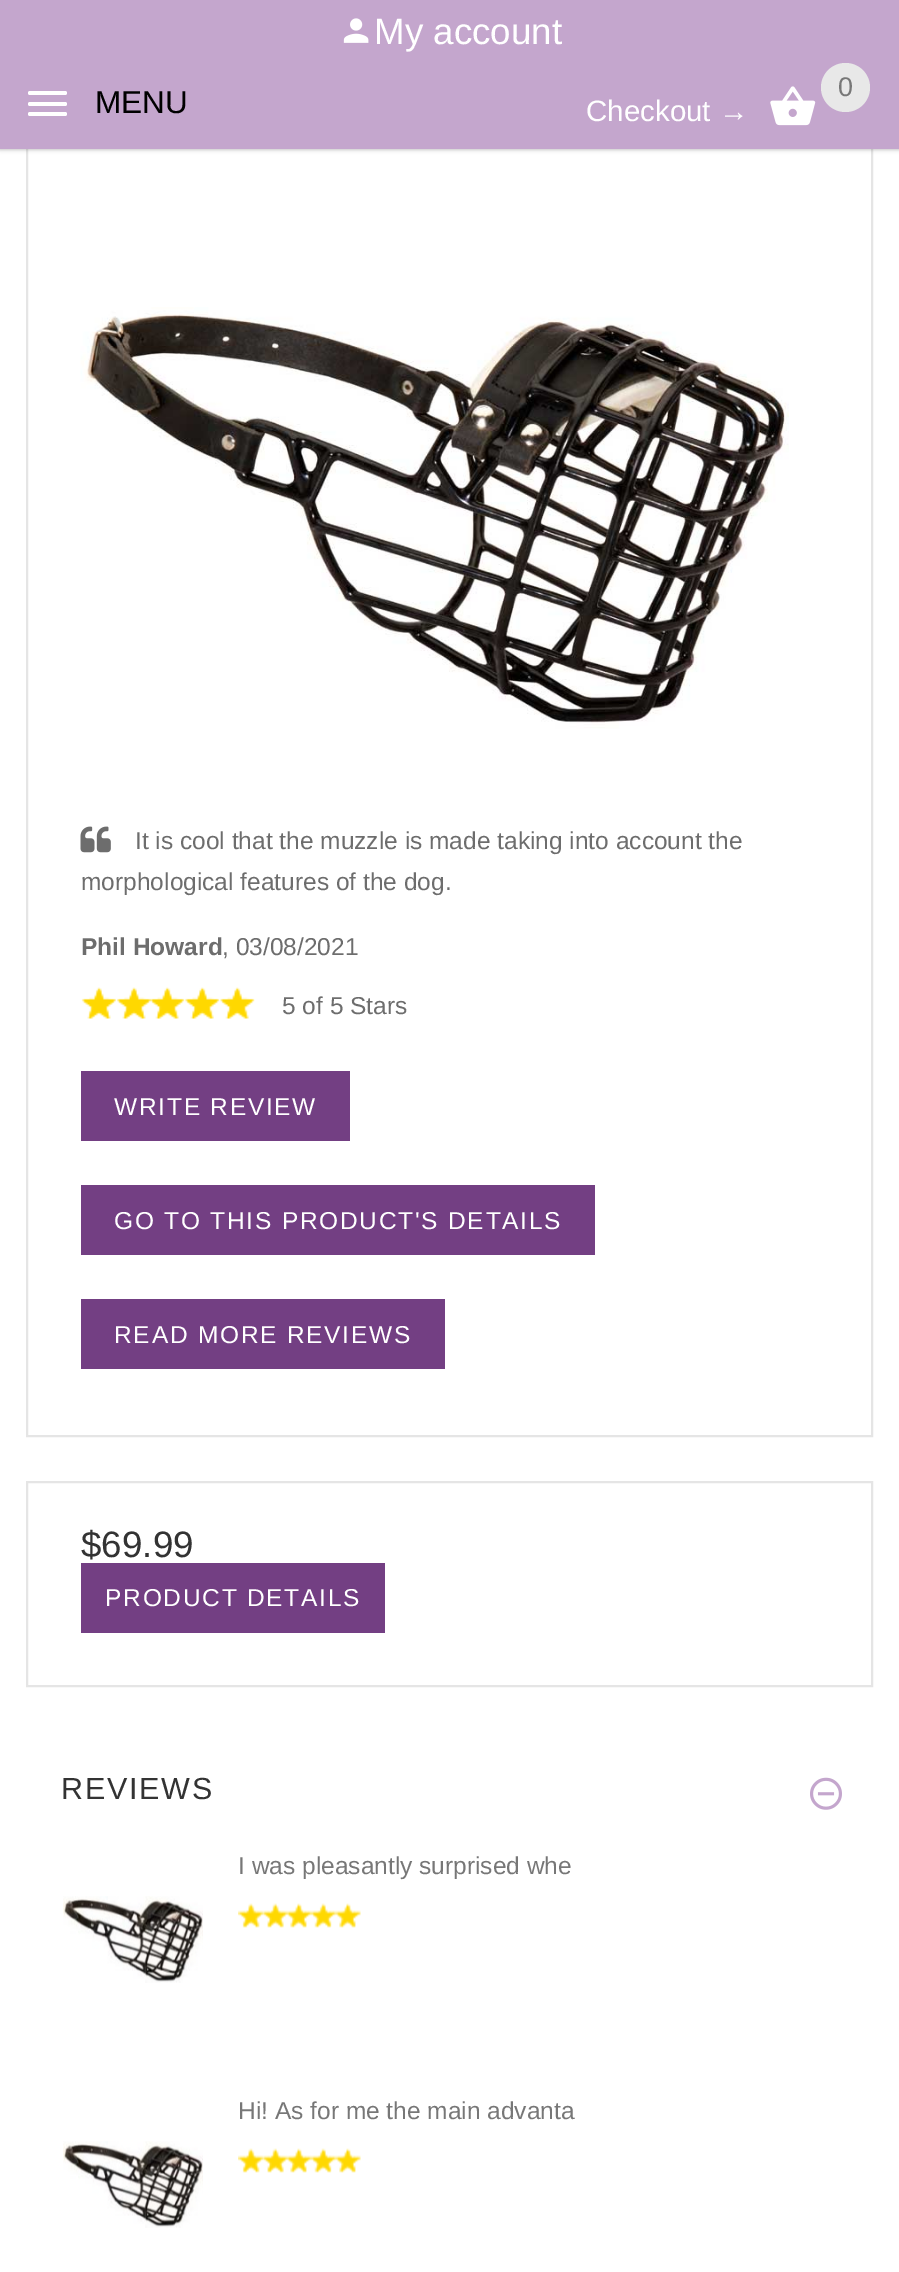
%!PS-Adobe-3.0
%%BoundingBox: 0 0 899 2272
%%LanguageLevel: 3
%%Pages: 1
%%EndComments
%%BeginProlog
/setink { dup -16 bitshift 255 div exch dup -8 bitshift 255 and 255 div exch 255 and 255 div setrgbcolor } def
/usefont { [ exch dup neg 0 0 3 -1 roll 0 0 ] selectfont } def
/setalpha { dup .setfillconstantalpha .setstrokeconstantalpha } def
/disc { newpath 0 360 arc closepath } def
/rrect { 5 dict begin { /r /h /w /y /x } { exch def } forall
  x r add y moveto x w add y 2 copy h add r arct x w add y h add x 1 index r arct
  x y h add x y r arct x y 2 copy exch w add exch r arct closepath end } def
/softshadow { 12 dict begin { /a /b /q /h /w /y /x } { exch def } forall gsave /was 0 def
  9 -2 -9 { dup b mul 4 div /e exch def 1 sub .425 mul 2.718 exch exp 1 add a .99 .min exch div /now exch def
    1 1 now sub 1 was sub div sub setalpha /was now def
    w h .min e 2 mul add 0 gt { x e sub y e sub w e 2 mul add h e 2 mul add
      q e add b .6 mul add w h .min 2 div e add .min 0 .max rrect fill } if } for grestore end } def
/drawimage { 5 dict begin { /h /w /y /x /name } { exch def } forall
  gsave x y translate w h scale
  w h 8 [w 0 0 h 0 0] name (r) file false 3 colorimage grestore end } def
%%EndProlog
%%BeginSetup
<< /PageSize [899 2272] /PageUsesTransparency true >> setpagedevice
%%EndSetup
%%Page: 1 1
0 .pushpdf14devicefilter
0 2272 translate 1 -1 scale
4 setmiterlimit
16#FFFFFF setink
0 0 899 2272 rectfill
16#E5E5E5 setink
2 setlinewidth
27 61 845 1375 rectstroke
16#000000 setink
0 2 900 147 0 2 0.24 softshadow
0 2 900 147 0 2.5 0.12 softshadow
16#C4A6CD setink
0 0 899 149 rectfill
(img1.raw) 343 18 26 25 drawimage
/LiberationSans-Regular 36.75 usefont
16#FFFFFF setink
374 44 moveto (My account) show
28 91 39 4 2 rrect fill
/LiberationSans-Regular 31.5 usefont
16#000000 setink
95 113 moveto (MENU) show
16#FFFFFF setink
28 102 39 4 2 rrect fill
28 112 39 4 2 rrect fill
16#E8E8E8 setink
845.5 87.5 24.5 disc fill
/LiberationSans-Regular 27 usefont
16#777777 setink
838 96 moveto (0) show
/LiberationSans-Regular 29.5 usefont
16#FFFFFF setink
586 121 moveto (Checkout →) show
(img2.raw) 770 86 46 40 drawimage
(img3.raw) 80 307 709 422 drawimage
(img4.raw) 80 826 31 27 drawimage
/LiberationSans-Regular 24.5 usefont
16#6D6D6D setink
135 849 moveto (It is cool that the muzzle is made taking into account the) show
81 890 moveto (morphological features of the dog.) show
/LiberationSans-Bold 24.5 usefont
81 955 moveto (Phil Howard) show
/LiberationSans-Regular 24.5 usefont
222 955 moveto (, 03/08/2021) show
(img5.raw) 81 987 174 32 drawimage
282 1014 moveto (5 of 5 Stars) show
16#733F83 setink
81 1071 269 70 rectfill
16#FFFFFF setink
114 1115 moveto 1.75 0 (WRITE REVIEW) ashow
16#733F83 setink
81 1185 514 70 rectfill
16#FFFFFF setink
114 1229 moveto 1.75 0 (GO TO THIS PRODUCT'S DETAILS) ashow
16#733F83 setink
81 1299 364 70 rectfill
16#FFFFFF setink
114 1343 moveto 1.75 0 (READ MORE REVIEWS) ashow
16#E5E5E5 setink
27 1482 845 204 rectstroke
/LiberationSans-Regular 36.75 usefont
16#333333 setink
81 1557 moveto ($69.99) show
16#733F83 setink
81 1563 304 70 rectfill
/LiberationSans-Regular 24.5 usefont
16#FFFFFF setink
105 1606 moveto 1.75 0 (PRODUCT DETAILS) ashow
/LiberationSans-Regular 30.5 usefont
16#333333 setink
61 1799 moveto 1.75 0 (REVIEWS) ashow
(img6.raw) 810 1777 32 33 drawimage
/LiberationSans-Regular 24.5 usefont
16#777777 setink
238 1874 moveto (I was pleasantly surprised whe) show
(img7.raw) 63 1896 140 87 drawimage
(img8.raw) 238 1903 123 25 drawimage
238 2119 moveto (Hi! As for me the main advanta) show
(img7.raw) 63 2141 140 87 drawimage
(img8.raw) 238 2148 123 25 drawimage
.poppdf14devicefilter showpage
%%EOF
